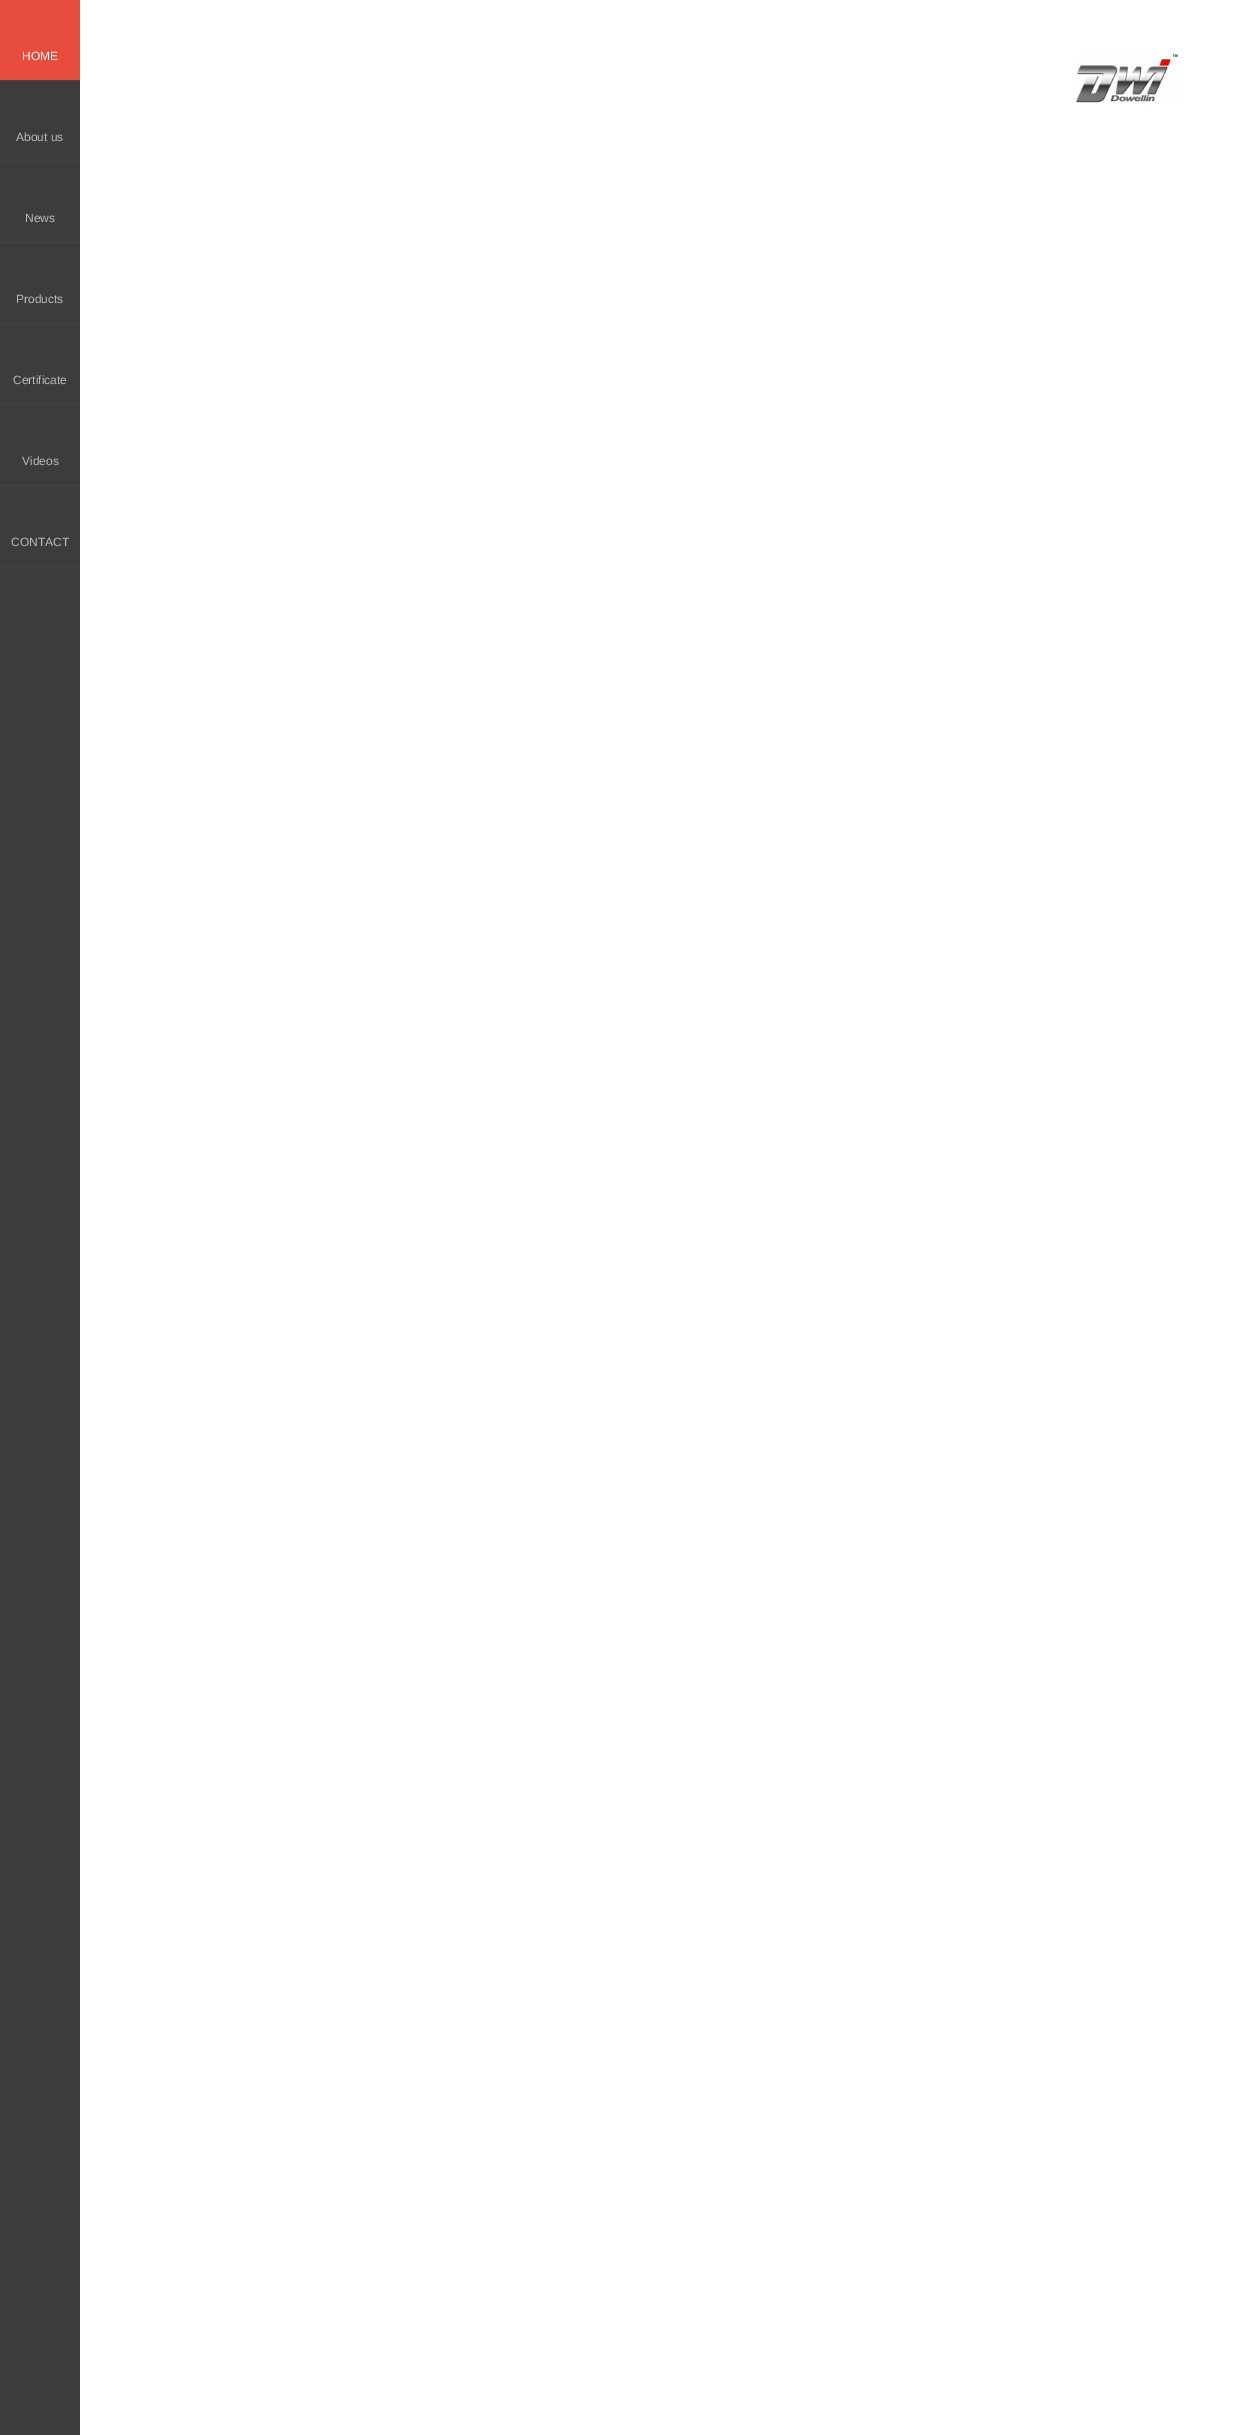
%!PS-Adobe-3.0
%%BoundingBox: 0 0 1239 2435
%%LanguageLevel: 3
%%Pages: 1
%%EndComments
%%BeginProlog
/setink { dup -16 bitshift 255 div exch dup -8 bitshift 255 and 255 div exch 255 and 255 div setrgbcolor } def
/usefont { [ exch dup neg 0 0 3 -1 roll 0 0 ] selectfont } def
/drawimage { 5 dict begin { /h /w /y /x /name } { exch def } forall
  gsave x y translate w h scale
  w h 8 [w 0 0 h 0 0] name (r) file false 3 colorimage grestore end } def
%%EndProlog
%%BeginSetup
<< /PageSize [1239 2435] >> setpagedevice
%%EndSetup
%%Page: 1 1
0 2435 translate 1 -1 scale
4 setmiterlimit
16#FFFFFF setink
0 0 1239 2435 rectfill
[
    [0 81 80 2354 16#3D3B3C]
    [0 80 80 1 16#444444]
    [0 0 80 80 16#E74C3C]
] { aload pop setink rectfill } forall
/LiberationSans-Regular 12 usefont
16#FFFFFF setink
22 60 moveto (HOME) show
16#444444 setink
0 161 80 1 rectfill
16#BBBBBB setink
16 141 moveto (About us) show
16#444444 setink
0 242 80 1 rectfill
16#BBBBBB setink
25 222 moveto (News) show
16#444444 setink
0 323 80 1 rectfill
16#BBBBBB setink
16 303 moveto (Products) show
16#444444 setink
0 404 80 1 rectfill
16#BBBBBB setink
13 384 moveto (Certificate) show
16#444444 setink
0 485 80 1 rectfill
16#BBBBBB setink
22 465 moveto (Videos) show
16#444444 setink
0 566 80 1 rectfill
16#BBBBBB setink
11 546 moveto (CONTACT) show
(img1.raw) 1076 53 102 50 drawimage
showpage
%%EOF
